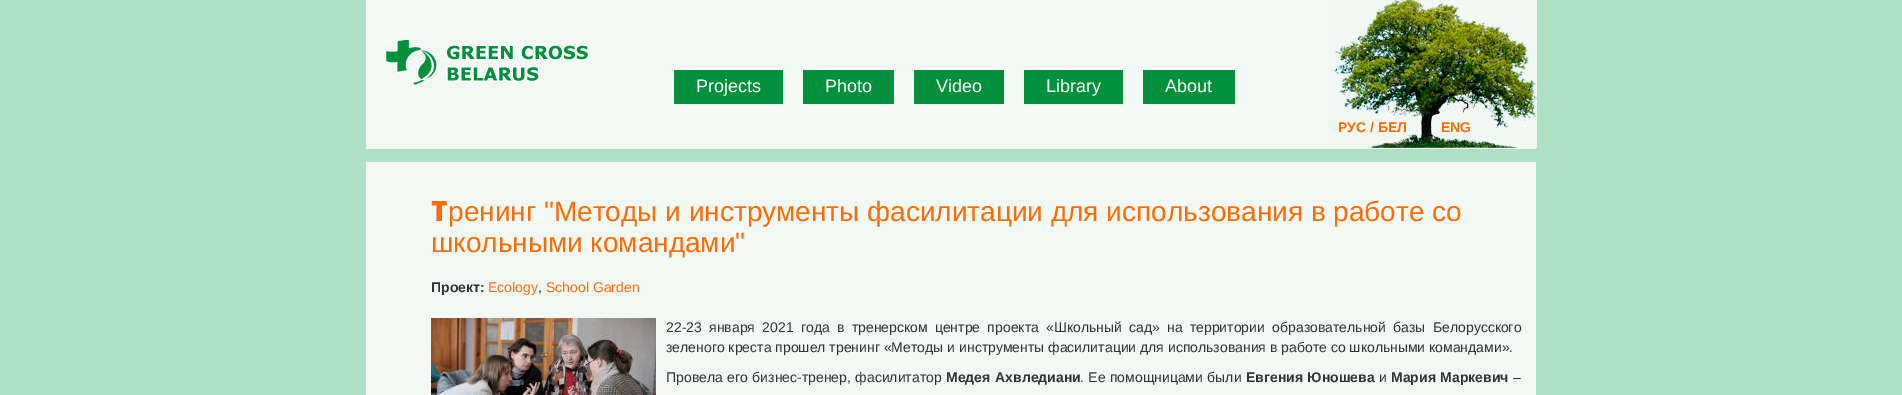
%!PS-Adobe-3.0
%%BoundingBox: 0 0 1902 395
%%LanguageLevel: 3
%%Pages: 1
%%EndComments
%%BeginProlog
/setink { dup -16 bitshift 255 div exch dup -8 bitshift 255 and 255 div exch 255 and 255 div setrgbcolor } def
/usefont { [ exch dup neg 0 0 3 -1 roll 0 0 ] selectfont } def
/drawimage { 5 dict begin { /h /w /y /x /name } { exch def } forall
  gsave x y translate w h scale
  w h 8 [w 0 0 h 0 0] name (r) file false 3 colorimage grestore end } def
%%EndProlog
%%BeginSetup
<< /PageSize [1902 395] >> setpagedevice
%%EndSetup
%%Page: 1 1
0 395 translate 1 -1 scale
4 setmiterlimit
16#B0E0C4 setink
0 0 1902 395 rectfill
16#F2F8F4 setink
366 0 1170 395 rectfill
(img1.raw) 386 40 203 46 drawimage
16#02903C setink
674 70 109 34 rectfill
/LiberationSans-Regular 18 usefont
16#FFFFFF setink
696 92 moveto (Projects) show
16#02903C setink
803 70 91 34 rectfill
16#FFFFFF setink
825 92 moveto (Photo) show
16#02903C setink
914 70 90 34 rectfill
16#FFFFFF setink
936 92 moveto (Video) show
16#02903C setink
1024 70 99 34 rectfill
16#FFFFFF setink
1046 92 moveto (Library) show
16#02903C setink
1143 70 92 34 rectfill
16#FFFFFF setink
1165 92 moveto (About) show
(img2.raw) 1332 0 205 148 drawimage
/LiberationSans-Bold 14 usefont
16#FA6D06 setink
1338 132 moveto (РУС / БЕЛ) show
1441 132 moveto (ENG) show
16#B0E0C4 setink
366 149 1170 13 rectfill
/NotoSans-Black 28 usefont
16#FA6D06 setink
431 221 moveto (Т) show
/LiberationSans-Regular 28 usefont
448 221 moveto (ренинг "Методы и инструменты фасилитации для использования в работе со) show
431 252 moveto (школьными командами") show
/LiberationSans-Bold 14 usefont
16#333333 setink
431 292 moveto (Проект:) show
/LiberationSans-Regular 14 usefont
16#FA6D06 setink
488 292 moveto (Ecology) show
16#333333 setink
538 292 moveto (,) show
16#FA6D06 setink
546 292 moveto (School Garden) show
(img3.raw) 431 318 225 77 drawimage
16#333333 setink
666 332 moveto 3.4 0 32 (22-23 января 2021 года в тренерском центре проекта «Школьный сад» на территории образовательной базы Белорусского) widthshow
666 352 moveto (зеленого креста прошел тренинг «Методы и инструменты фасилитации для использования в работе со школьными командами».) show
666 382 moveto 0.5 0 32 (Провела его бизнес-тренер, фасилитатор) widthshow
/LiberationSans-Bold 14 usefont
946 382 moveto 1 0 32 (Медея Ахвледиани) widthshow
/LiberationSans-Regular 14 usefont
1080 382 moveto 0.5 0 32 (. Ее помощницами были) widthshow
/LiberationSans-Bold 14 usefont
1246 382 moveto 0.5 0 32 (Евгения Юношева) widthshow
/LiberationSans-Regular 14 usefont
1379 382 moveto (и) show
/LiberationSans-Bold 14 usefont
1391 382 moveto 0.5 0 32 (Мария Маркевич) widthshow
/LiberationSans-Regular 14 usefont
1513 382 moveto (–) show
showpage
%%EOF
